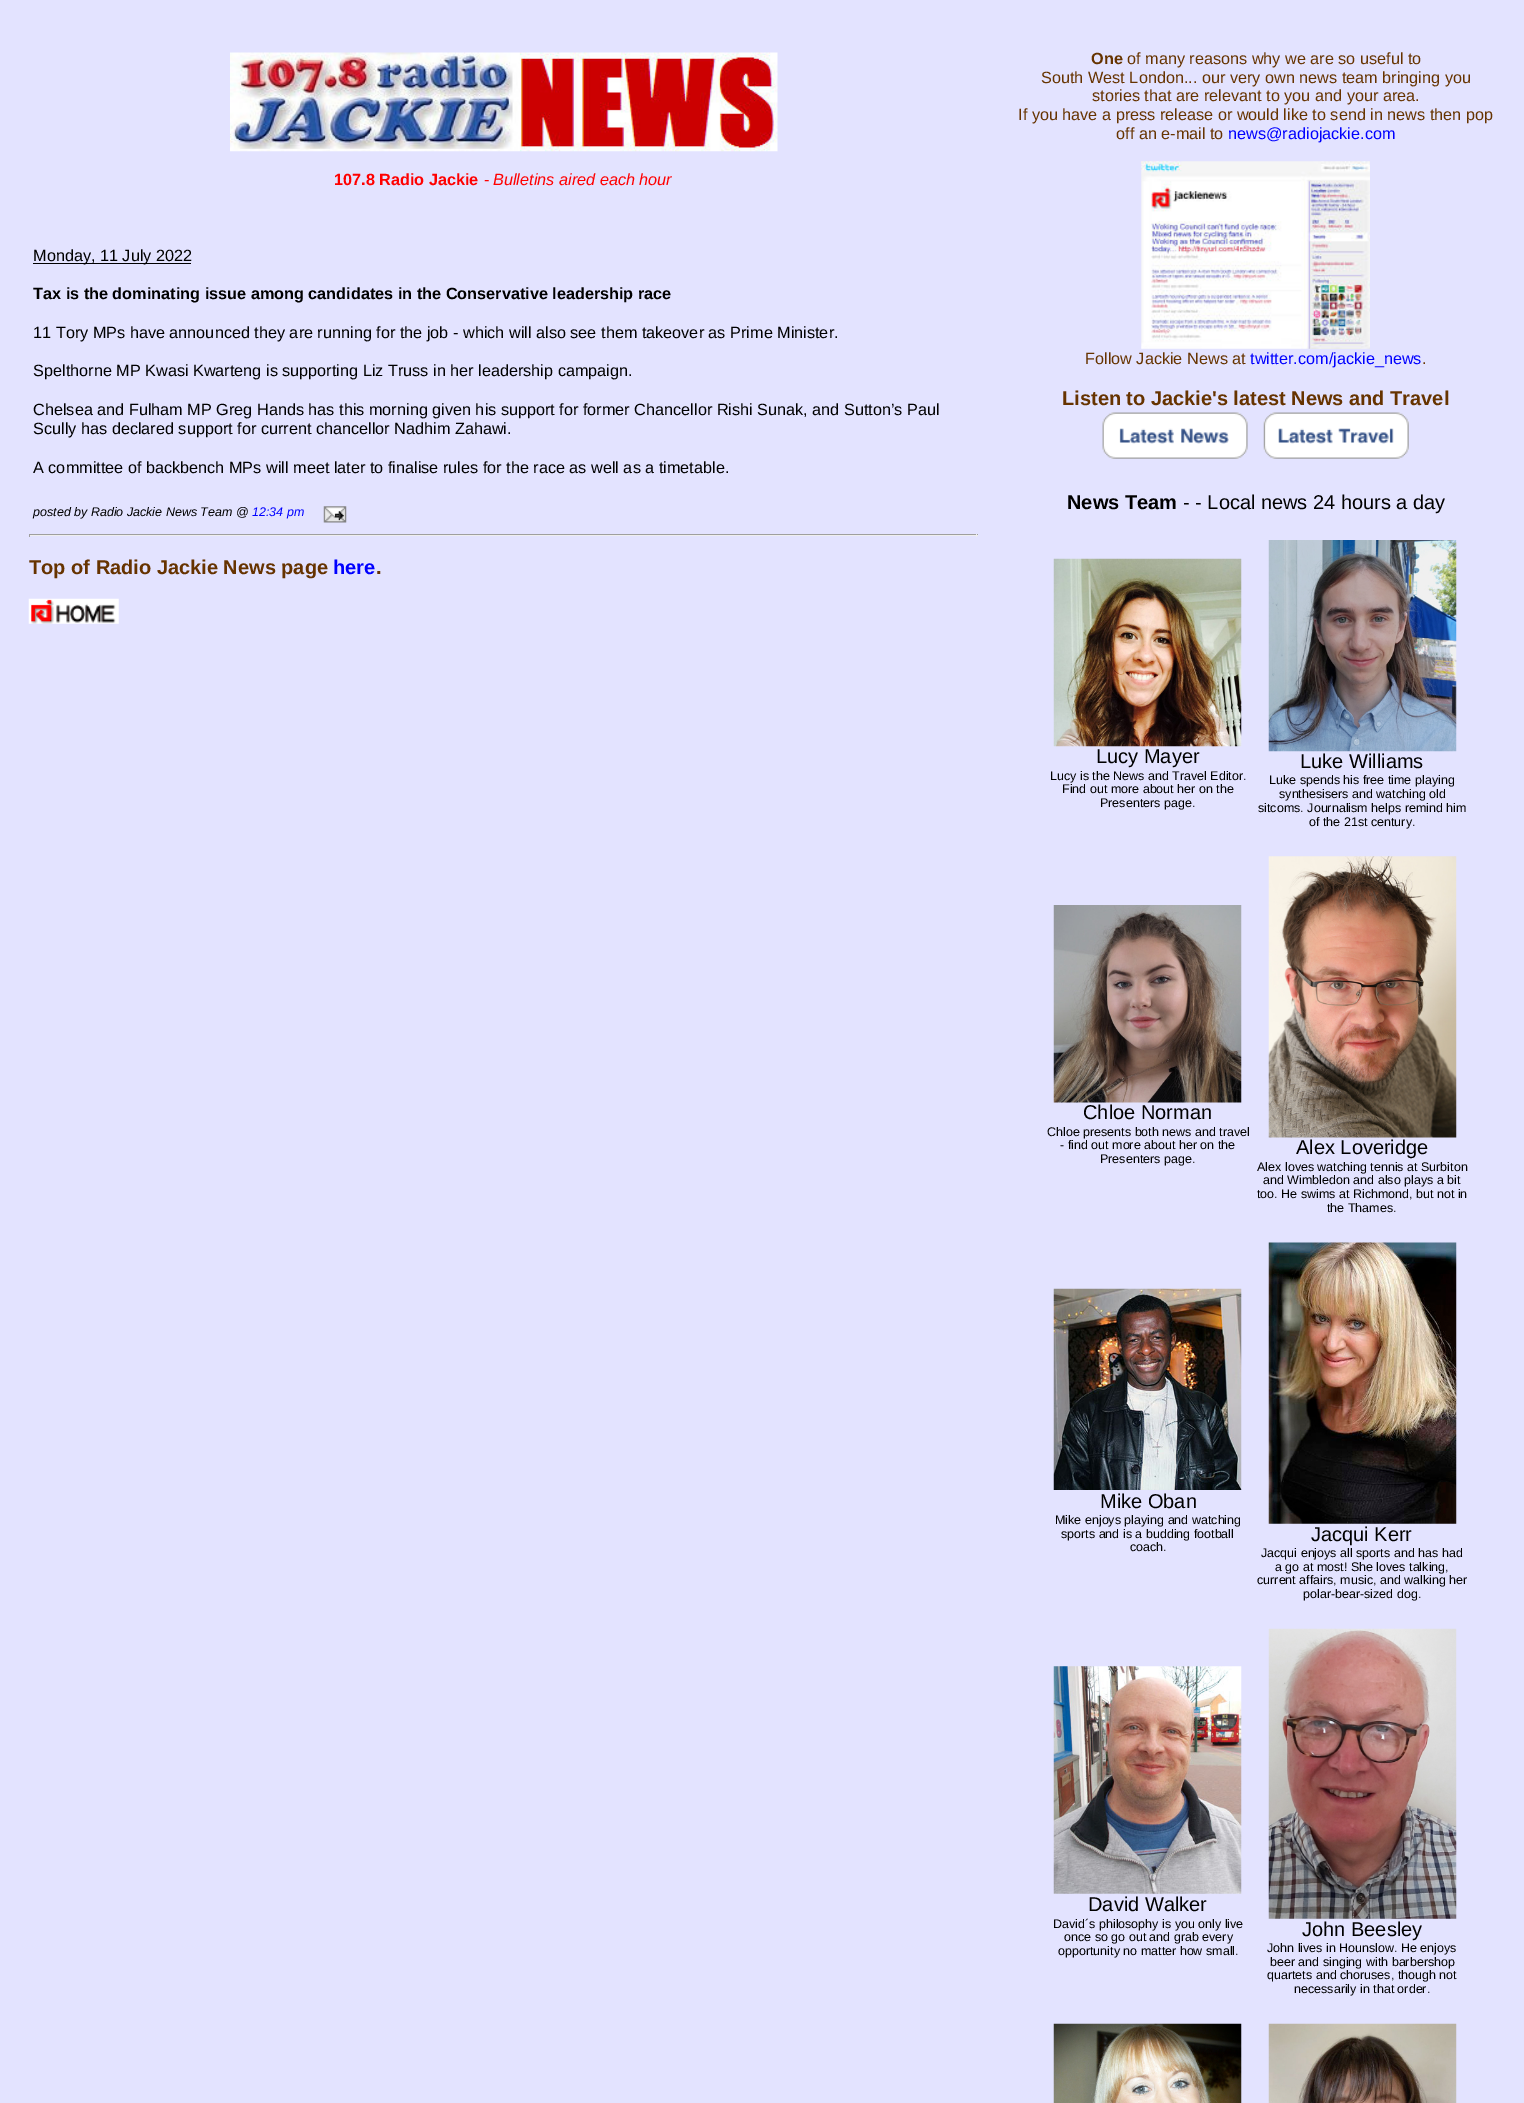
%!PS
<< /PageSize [1524 2103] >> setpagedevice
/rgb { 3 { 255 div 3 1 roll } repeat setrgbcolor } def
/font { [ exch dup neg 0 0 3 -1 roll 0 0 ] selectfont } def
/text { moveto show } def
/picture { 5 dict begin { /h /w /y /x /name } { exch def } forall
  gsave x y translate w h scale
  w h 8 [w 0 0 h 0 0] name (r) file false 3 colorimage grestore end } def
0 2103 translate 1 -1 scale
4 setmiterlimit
227 227 255 rgb
0 0 1524 2103 rectfill
(img_01.rgb) 230 52 548 100 picture
0 0 0 rgb
33 263 158 1 rectfill
(img_02.rgb) 323 506 24 17 picture
159 159 159 rgb
29 534 949 1 rectfill
238 238 238 rgb
976 534 1 3 rectfill
29 535 949 1 rectfill
159 159 159 rgb
29 534 1 3 rectfill
(img_03.rgb) 28 598 91 26 picture
(img_04.rgb) 1141 161 229 188 picture
(img_05.rgb) 1102 412 146 47 picture
(img_06.rgb) 1263 412 146 47 picture
(img_07.rgb) 1053 558 189 189 picture
(img_08.rgb) 1268 540 189 212 picture
(img_09.rgb) 1053 905 189 198 picture
(img_10.rgb) 1268 856 189 282 picture
(img_11.rgb) 1053 1288 189 202 picture
(img_12.rgb) 1268 1242 189 282 picture
(img_13.rgb) 1053 1666 189 228 picture
(img_14.rgb) 1268 1628 189 291 picture
(img_15.rgb) 1053 2023 189 80 picture
(img_16.rgb) 1268 2023 189 80 picture
/LiberationSans-Bold 16.25 font
255 0 0 rgb
(107.8 Radio Jackie) 334 185 text
/LiberationSans-Regular 16.25 font
(-) 484 185 text
/LiberationSans-Italic 16.25 font
(Bulletins aired each hour) 493 185 text
/LiberationSans-Regular 16.25 font
0 0 0 rgb
(Monday, 11 July 2022) 33 261 text
/LiberationSans-Bold 16.25 font
(Tax is the dominating issue among candidates in the Conservative leadership race) 33 299 text
/LiberationSans-Regular 16.25 font
(11 Tory MPs have announced they are running for the job - which will also see them takeover as Prime Minister.) 33 338 text
(Spelthorne MP Kwasi Kwarteng is supporting Liz Truss in her leadership campaign.) 33 376 text
(Chelsea and Fulham MP Greg Hands has this morning given his support for former Chancellor Rishi Sunak, and Sutton’s Paul) 33 415 text
(Scully has declared support for current chancellor Nadhim Zahawi.) 33 434 text
(A committee of backbench MPs will meet later to finalise rules for the race as well as a timetable.) 33 473 text
/LiberationSans-Italic 12.5 font
(posted by Radio Jackie News Team @) 33 516 text
0 0 255 rgb
(12:34 pm) 252 516 text
/LiberationSans-Bold 20 font
102 51 0 rgb
(Top of Radio Jackie News page) 29 574 text
0 0 255 rgb
(here) 333 574 text
102 51 0 rgb
(.) 376 574 text
/LiberationSans-Bold 16.25 font
(One) 1091 64 text
/LiberationSans-Regular 16.25 font
(of many reasons why we are so useful to) 1127 64 text
(South West London... our very own news team bringing you) 1041 83 text
(stories that are relevant to you and your area.) 1092 101 text
(If you have a press release or would like to send in news then pop) 1018 120 text
(off an e-mail to) 1116 139 text
0 0 255 rgb
(news@radiojackie.com) 1228 139 text
102 51 0 rgb
(Follow Jackie News at) 1085 364 text
0 0 255 rgb
(twitter.com/jackie_news) 1250 364 text
102 51 0 rgb
(.) 1422 364 text
/LiberationSans-Bold 20 font
(Listen to Jackie's latest News and Travel) 1062 405 text
0 0 0 rgb
(News Team) 1067 509 text
/LiberationSans-Regular 20 font
(- - Local news 24 hours a day) 1183 509 text
(Lucy Mayer) 1096 763 text
/LiberationSans-Regular 12.5 font
(Lucy is the News and Travel Editor.) 1050 780 text
(Find out more about her on the) 1062 793 text
(Presenters page.) 1100 807 text
/LiberationSans-Regular 20 font
(Luke Williams) 1300 768 text
/LiberationSans-Regular 12.5 font
(Luke spends his free time playing) 1269 784 text
(synthesisers and watching old) 1279 798 text
(sitcoms. Journalism helps remind him) 1258 812 text
(of the 21st century.) 1309 826 text
/LiberationSans-Regular 20 font
(Chloe Norman) 1083 1119 text
/LiberationSans-Regular 12.5 font
(Chloe presents both news and travel) 1047 1136 text
(- find out more about her on the) 1060 1149 text
(Presenters page.) 1100 1163 text
/LiberationSans-Regular 20 font
(Alex Loveridge) 1296 1154 text
/LiberationSans-Regular 12.5 font
(Alex loves watching tennis at Surbiton) 1257 1171 text
(and Wimbledon and also plays a bit) 1263 1184 text
(too. He swims at Richmond, but not in) 1257 1198 text
(the Thames.) 1327 1212 text
/LiberationSans-Regular 20 font
(Mike Oban) 1100 1508 text
/LiberationSans-Regular 12.5 font
(Mike enjoys playing and watching) 1055 1524 text
(sports and is a budding football) 1061 1538 text
(coach.) 1130 1551 text
/LiberationSans-Regular 20 font
(Jacqui Kerr) 1311 1541 text
/LiberationSans-Regular 12.5 font
(Jacqui enjoys all sports and has had) 1261 1557 text
(a go at most! She loves talking,) 1275 1571 text
(current affairs, music, and walking her) 1257 1584 text
(polar-bear-sized dog.) 1303 1598 text
/LiberationSans-Regular 20 font
(David Walker) 1088 1911 text
/LiberationSans-Regular 12.5 font
(David´s philosophy is you only live) 1053 1928 text
(once so go out and grab every) 1064 1941 text
(opportunity no matter how small.) 1058 1955 text
/LiberationSans-Regular 20 font
(John Beesley) 1302 1936 text
/LiberationSans-Regular 12.5 font
(John lives in Hounslow. He enjoys) 1267 1952 text
(beer and singing with barbershop) 1270 1966 text
(quartets and choruses, though not) 1267 1979 text
(necessarily in that order.) 1294 1993 text
showpage
